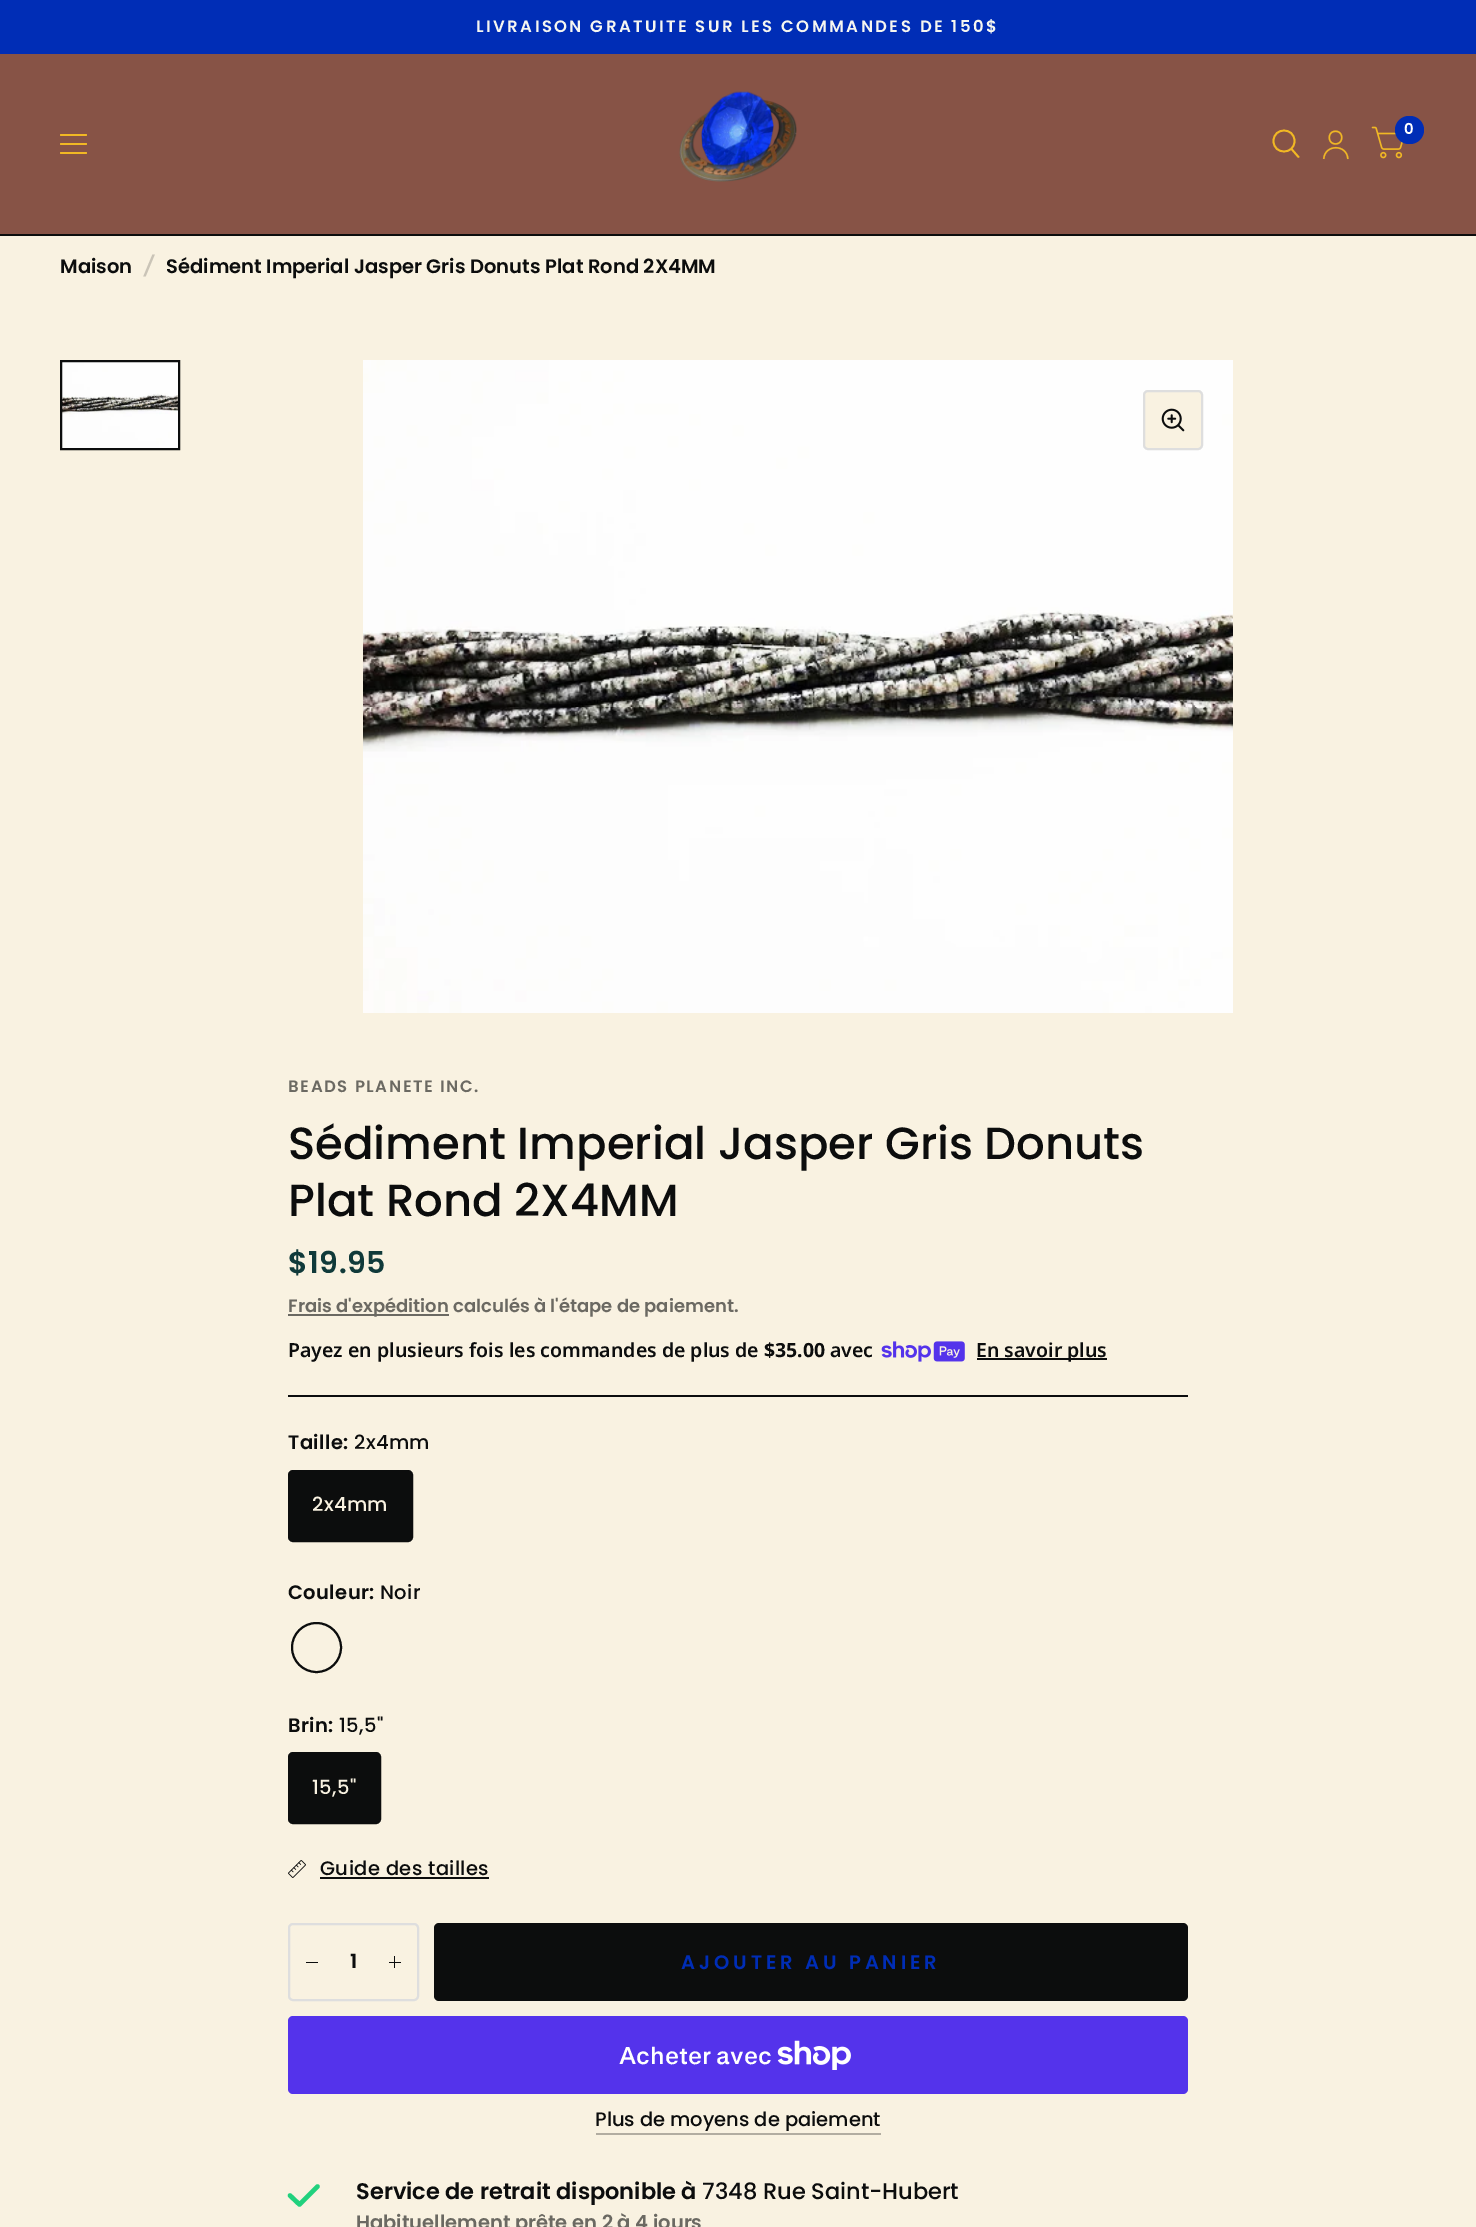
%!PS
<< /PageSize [1476 2227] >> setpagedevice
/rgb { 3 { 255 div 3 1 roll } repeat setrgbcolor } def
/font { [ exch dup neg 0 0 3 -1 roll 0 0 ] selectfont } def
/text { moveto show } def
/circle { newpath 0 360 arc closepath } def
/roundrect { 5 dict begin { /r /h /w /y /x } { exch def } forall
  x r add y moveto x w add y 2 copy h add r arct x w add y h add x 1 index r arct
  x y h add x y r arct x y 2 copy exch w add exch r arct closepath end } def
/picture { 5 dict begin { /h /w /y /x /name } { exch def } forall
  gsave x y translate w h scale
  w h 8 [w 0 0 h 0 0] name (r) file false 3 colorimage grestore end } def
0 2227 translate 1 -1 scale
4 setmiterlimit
249 242 225 rgb
0 0 1476 2227 rectfill
0 45 182 rgb
0 0 1476 54 rectfill
135 83 70 rgb
0 54 1476 180 rectfill
12 13 13 rgb
0 234 1476 2 rectfill
(img_01.rgb) 679 91 118 91 picture
241 184 36 rgb
1.8 setlinewidth
1 setlinecap
1 setlinejoin
1291.5 149 moveto 7 8 rlineto 1294.5 141 moveto 0 14 -21 14 -21 0 rcurveto 0 -14 21 -14 21 0 rcurveto closepath stroke
(img_02.rgb) 1322 130 27 30 picture
(img_03.rgb) 1371 126 32 33 picture
0 45 182 rgb
1395 116 29 28 14 roundrect fill
241 184 36 rgb
60 134 27 2 1 roundrect fill
60 143 27 2 1 roundrect fill
60 152 27 2 1 roundrect fill
(img_04.rgb) 62 362 116 86 picture
12 13 13 rgb
2 setlinewidth
0 setlinecap
0 setlinejoin
61 361 118 88 rectstroke
(img_05.rgb) 363 360 870 653 picture
249 242 225 rgb
1144 391 58 58 4 roundrect gsave fill grestore
222 222 222 rgb
stroke
(img_06.rgb) 1161 408 24 24 picture
12 13 13 rgb
288 1395 900 2 rectfill
107 105 98 rgb
288 1314 161 2 rectfill
(img_07.rgb) 881 1341 84 21 picture
12 13 13 rgb
977 1358 130 2 rectfill
289 1471 123 70 4 roundrect gsave fill grestore
stroke
316.5 1647.5 24.5 circle stroke
289 1753 91 70 4 roundrect gsave fill grestore
stroke
(img_08.rgb) 288 1860 18 18 picture
320 1877 169 2 rectfill
222 222 222 rgb
289 1924 129 76 4 roundrect stroke
12 13 13 rgb
306 1962 12 1 rectfill
394 1956 1 12 rectfill
389 1962 12 1 rectfill
434 1923 754 78 5 roundrect fill
84 51 235 rgb
288 2016 900 78 5 roundrect fill
(img_09.rgb) 777 2040 74 30 picture
178 173 161 rgb
596 2133 285 2 rectfill
33 209 125 rgb
4.5 setlinewidth
1 setlinecap
1 setlinejoin
317.5 2186.5 moveto -18 18 rlineto -9.5 -9 rlineto stroke
/Poppins-SemiBold 16.5 font
246 246 240 rgb
476 32 moveto 2.45 0 (LIVRAISON GRATUITE SUR LES COMMANDES DE 150$) ashow
/Poppins-SemiBold 15 font
255 255 255 rgb
(0) 1404 134 text
/Poppins-SemiBold 19.5 font
12 13 13 rgb
(Maison) 60 273 text
/Poppins-SemiBoldItalic 19.5 font
202 196 183 rgb
(/) 144 273 text
/Poppins-SemiBold 19.5 font
12 13 13 rgb
(Sédiment Imperial Jasper Gris Donuts Plat Rond 2X4MM) 166 273 text
/Poppins-SemiBold 16.5 font
107 105 98 rgb
288 1092 moveto 1.6 0 (BEADS PLANETE INC.) ashow
/Poppins-Medium 45 font
12 13 13 rgb
(Sédiment Imperial Jasper Gris Donuts) 288 1159 text
(Plat Rond 2X4MM) 288 1216 text
/Poppins-SemiBold 30 font
16 58 58 rgb
288 1273 moveto 0.5 0 ($19.95) ashow
/Poppins-SemiBold 18 font
107 105 98 rgb
(Frais d'expédition calculés à l'étape de paiement.) 288 1312 text
/NotoSans-SemiBold 19.5 font
12 13 13 rgb
(Payez en plusieurs fois les commandes de plus de) 288 1357 text
/NotoSans-Bold 19.5 font
($35.00) 764 1357 text
/NotoSans-SemiBold 19.5 font
(avec) 830 1357 text
(En savoir plus) 976 1357 text
/Poppins-SemiBold 19.5 font
288 1449 moveto 0.4 0 (Taille:) ashow
/Poppins-Medium 19.5 font
354 1449 moveto 0.4 0 (2x4mm) ashow
249 242 225 rgb
312 1511 moveto 0.4 0 (2x4mm) ashow
/Poppins-SemiBold 19.5 font
12 13 13 rgb
288 1599 moveto 0.4 0 (Couleur:) ashow
/Poppins-Medium 19.5 font
380 1599 moveto 0.4 0 (Noir) ashow
/Poppins-SemiBold 19.5 font
288 1732 moveto 0.4 0 (Brin:) ashow
/Poppins-Medium 19.5 font
339 1732 moveto 0.4 0 (15,5") ashow
249 242 225 rgb
312 1794 moveto 0.4 0 (15,5") ashow
12 13 13 rgb
320 1875 moveto 0.4 0 (Guide des tailles) ashow
/Poppins-SemiBold 19.5 font
(1) 350 1968 text
0 45 182 rgb
681 1969 moveto 3.9 0 (AJOUTER AU PANIER) ashow
/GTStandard-SemiBold 24 font
255 255 255 rgb
(Acheter avec) 619 2064 text
/Poppins-Medium 19.5 font
12 13 13 rgb
(Plus de moyens de paiement) 595 2126 text
/Poppins-SemiBold 22.5 font
(Service de retrait disponible à) 356 2199 text
/Poppins-Medium 22.5 font
(7348 Rue Saint-Hubert) 702 2199 text
/Poppins-SemiBold 19.5 font
107 105 98 rgb
(Habituellement prête en 2 à 4 jours) 356 2229 text
showpage
